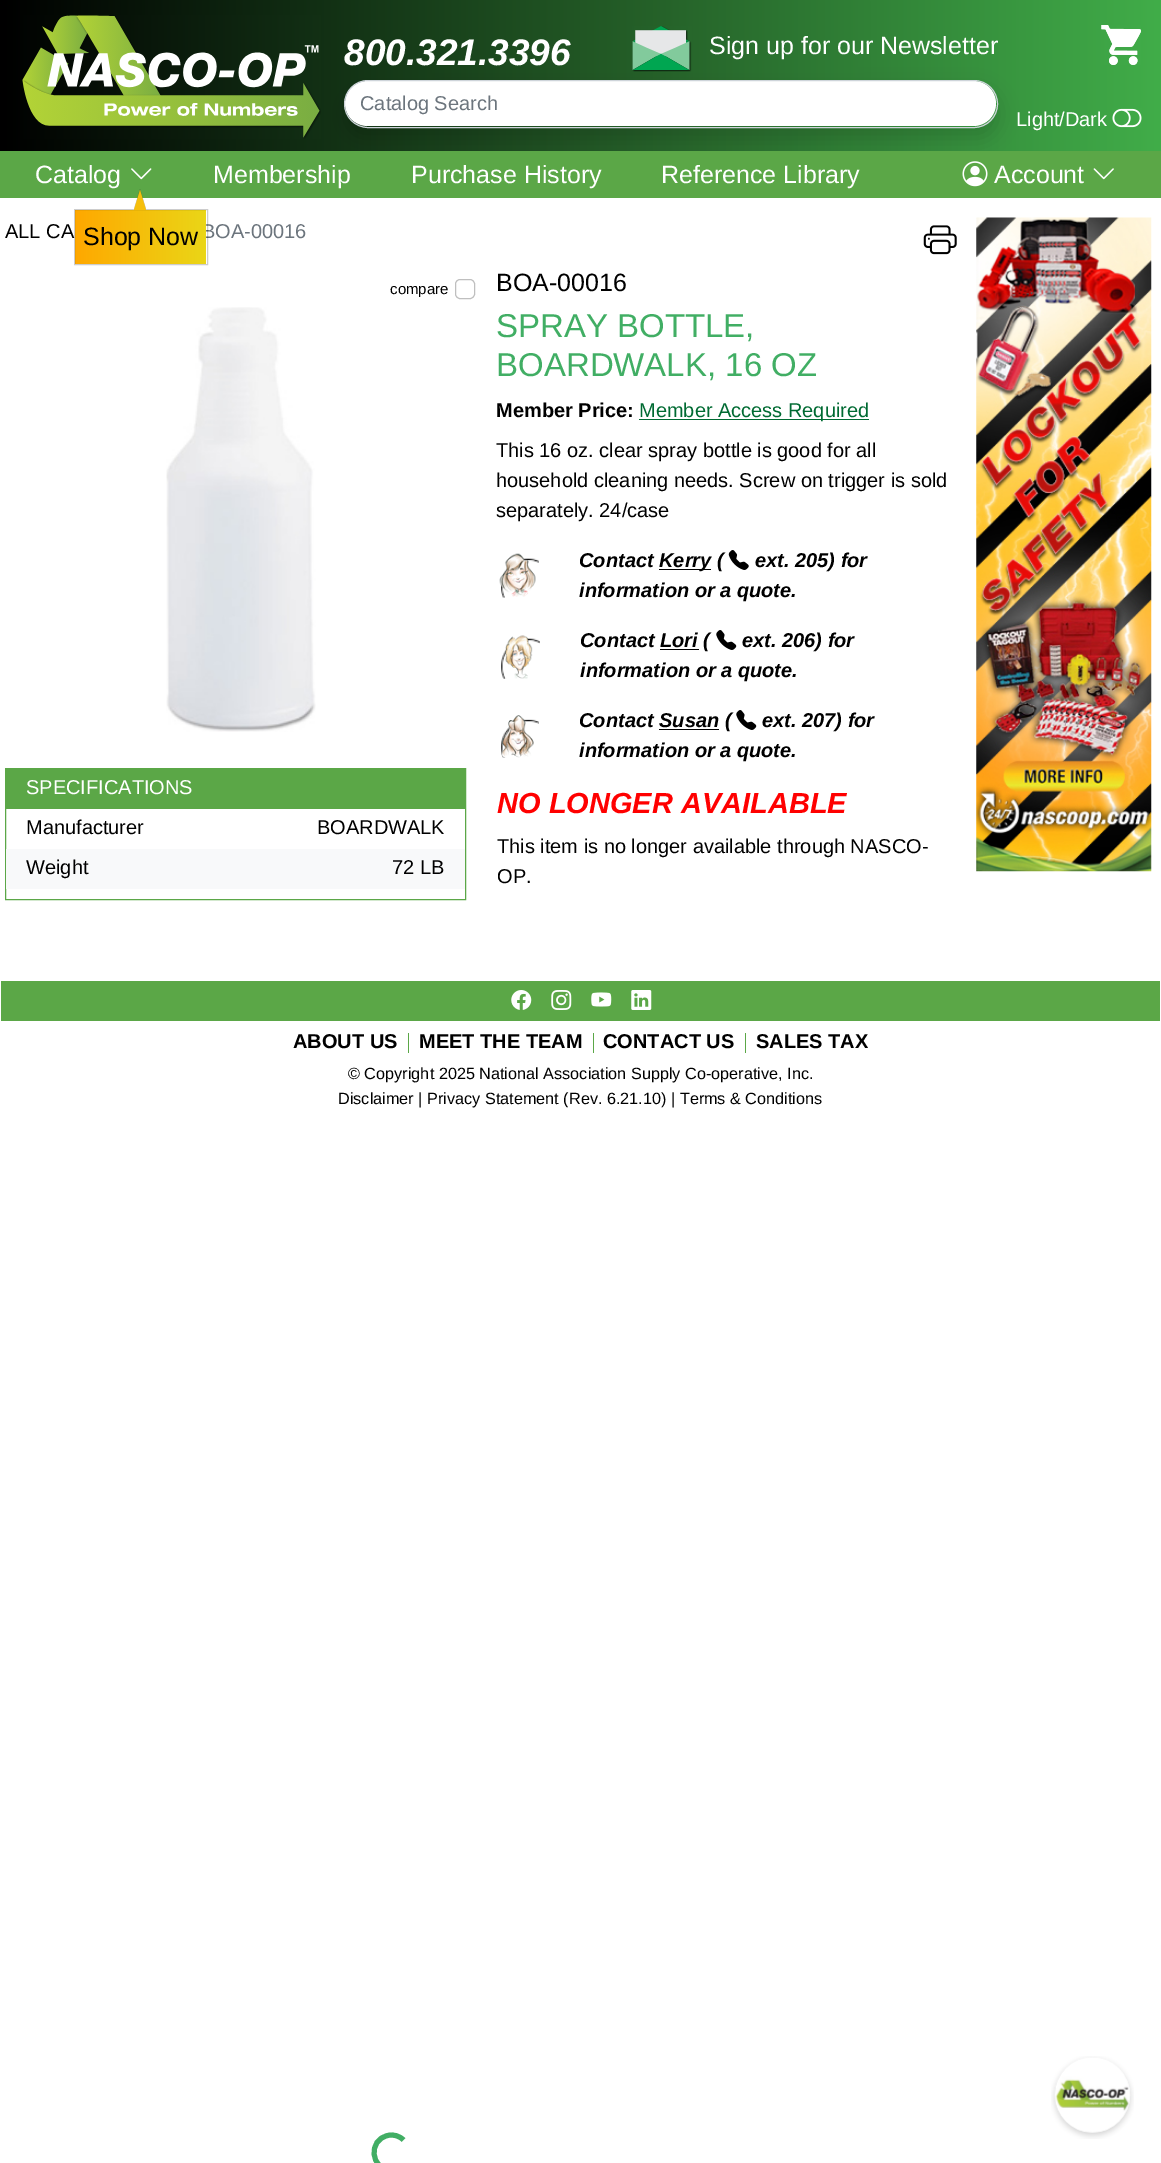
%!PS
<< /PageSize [1161 2163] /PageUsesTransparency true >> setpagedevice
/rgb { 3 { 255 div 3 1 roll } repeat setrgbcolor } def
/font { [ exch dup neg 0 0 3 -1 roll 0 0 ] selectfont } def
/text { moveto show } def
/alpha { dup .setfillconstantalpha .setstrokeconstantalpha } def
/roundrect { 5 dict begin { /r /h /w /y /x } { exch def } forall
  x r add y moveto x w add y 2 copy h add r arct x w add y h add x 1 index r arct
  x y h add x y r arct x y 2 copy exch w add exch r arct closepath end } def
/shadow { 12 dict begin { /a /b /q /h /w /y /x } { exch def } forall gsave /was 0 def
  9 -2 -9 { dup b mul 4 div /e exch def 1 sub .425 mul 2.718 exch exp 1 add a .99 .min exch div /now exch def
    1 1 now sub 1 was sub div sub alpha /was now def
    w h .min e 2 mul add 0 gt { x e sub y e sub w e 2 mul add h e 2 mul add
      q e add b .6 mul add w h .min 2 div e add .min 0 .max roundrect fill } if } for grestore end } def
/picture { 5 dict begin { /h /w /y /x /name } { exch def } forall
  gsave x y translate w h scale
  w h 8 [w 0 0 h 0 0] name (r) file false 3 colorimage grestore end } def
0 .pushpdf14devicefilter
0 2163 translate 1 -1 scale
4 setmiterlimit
255 255 255 rgb
0 0 1161 2163 rectfill
gsave 0 0 moveto 1161 0 rlineto 0 151 rlineto -1161 0 rlineto closepath clip newpath
<< /ShadingType 2 /ColorSpace /DeviceRGB /Coords [0 76 1161 76] /Extend [true true] /Function << /FunctionType 2 /Domain [0 1] /C0 [0 0 0] /C1 [0.255 0.678 0.286] /N 1 >> >> shfill grestore
(img_01.rgb) 22 15 299 124 picture
gsave
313 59 moveto 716 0 rlineto 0 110 rlineto -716 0 rlineto closepath 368 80 moveto 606 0 rlineto 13.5 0 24 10.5 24 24 rcurveto 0 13.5 -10.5 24 -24 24 rcurveto -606 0 rlineto -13.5 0 -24 -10.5 -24 -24 rcurveto 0 -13.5 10.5 -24 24 -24 rcurveto closepath eoclip newpath
0 0 0 rgb
344 90 654 48 24 10 0.15 shadow
grestore
(img_02.rgb) 632 26 60 46 picture
345 81 651 45 22.5 roundrect fill
206 212 218 rgb
344.5 80.5 653 47 23.5 roundrect stroke
(img_03.rgb) 1101 25 40 40 picture
(img_04.rgb) 1112 108 30 20 picture
91 167 71 rgb
0 151 1161 47 rectfill
(img_05.rgb) 131 168 21 12 picture
(img_06.rgb) 962 161 26 26 picture
(img_07.rgb) 1093 168 21 12 picture
(img_08.rgb) 923 225 34 30 picture
191 191 191 rgb
455.5 279.5 19 19 4.5 roundrect stroke
(img_09.rgb) 166 307 150 425 picture
91 167 71 rgb
5.5 768.5 460 131 rectstroke
6 769 459 40 rectfill
248 249 250 rgb
6 849 459 40 rectfill
0 106 50 rgb
639 419 230 1 rectfill
(img_10.rgb) 501 558 38 40 picture
(img_11.rgb) 499 553 37 44 picture
0 0 0 rgb
659 569 52 1 rectfill
(img_12.rgb) 728 550 21 20 picture
(img_13.rgb) 501 638 39 41 picture
(img_14.rgb) 505 635 28 44 picture
(img_15.rgb) 716 630 21 20 picture
660 649 39 1 rectfill
(img_16.rgb) 501 719 38 39 picture
(img_17.rgb) 501 715 33 43 picture
(img_15.rgb) 736 710 21 20 picture
659 729 60 1 rectfill
(img_18.rgb) 976 217 176 655 picture
91 167 71 rgb
1 981 1159 40 rectfill
(img_19.rgb) 511 990 21 20 picture
(img_20.rgb) 551 990 21 20 picture
(img_21.rgb) 591 992 21 15 picture
(img_22.rgb) 631 990 21 20 picture
408 1033 1 20 rectfill
593 1033 1 20 rectfill
745 1033 1 20 rectfill
65 174 100 rgb
5 setlinewidth
403.5 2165 moveto -3 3 -7.5 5 -12.5 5 rcurveto -20.5 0 -23.5 -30.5 -3 -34.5 rcurveto 5.5 -1.5 11.5 0.5 15.5 4.5 rcurveto stroke
0.25 alpha
0 0 0 rgb
146 209 moveto -12 0 rlineto 6 -20 rlineto closepath fill
1 alpha
(img_23.rgb) 1051 2056 83 83 picture
/LiberationSans-BoldItalic 37 font
255 255 255 rgb
(800.321.3396) 344 65 text
/LiberationSans-Regular 25 font
(Sign up for our Newsletter) 709 54 text
/LiberationSans-Regular 20 font
108 117 125 rgb
(Catalog Search) 360 110 text
255 255 255 rgb
(Light/Dark) 1016 126 text
/LiberationSans-Regular 25 font
(Catalog) 35 183 text
(Membership) 213 183 text
(Purchase History) 411 183 text
(Reference Library) 661 183 text
(Account) 994 183 text
/LiberationSans-Regular 20 font
0 0 0 rgb
(ALL CA) 5 238 text
108 117 125 rgb
(BOA-00016) 202 238 text
/LiberationSans-Regular 15 font
0 0 0 rgb
(compare) 390 294 text
/LiberationSans-Regular 20 font
255 255 255 rgb
(SPECIFICATIONS) 26 794 text
0 0 0 rgb
(Manufacturer) 26 834 text
(BOARDWALK) 317 834 text
(Weight) 26 874 text
(72 LB) 392 874 text
/LiberationSans-Regular 25 font
(BOA-00016) 496 291 text
/LiberationSans-Regular 33 font
65 174 100 rgb
(SPRAY BOTTLE,) 496 337 text
(BOARDWALK, 16 OZ) 496 376 text
/LiberationSans-Bold 20 font
0 0 0 rgb
(Member Price:) 496 417 text
/LiberationSans-Regular 20 font
0 106 50 rgb
(Member Access Required) 639 417 text
0 0 0 rgb
(This 16 oz. clear spray bottle is good for all) 496 457 text
(household cleaning needs. Screw on trigger is sold) 496 487 text
(separately. 24/case) 496 517 text
/LiberationSans-BoldItalic 20 font
(Contact) 579 567 text
(Kerry \() 659 567 text
(ext. 205\) for) 755 567 text
(information or a quote.) 579 597 text
(Contact Lori \() 580 647 text
(ext. 206\) for) 742 647 text
(information or a quote.) 580 677 text
(Contact Susan \() 579 727 text
(ext. 207\) for) 762 727 text
(information or a quote.) 579 757 text
/LiberationSans-BoldItalic 29 font
255 0 0 rgb
(NO LONGER AVAILABLE) 497 813 text
/LiberationSans-Regular 20 font
0 0 0 rgb
(This item is no longer available through NASCO-) 497 853 text
(OP.) 497 883 text
/LiberationSans-Bold 20 font
(ABOUT US) 293 1048 text
(MEET THE TEAM) 419 1048 text
(CONTACT US) 603 1048 text
(SALES TAX) 756 1048 text
/LiberationSans-Regular 16.25 font
(© Copyright 2025 National Association Supply Co-operative, Inc.) 348 1079 text
(Disclaimer | Privacy Statement \(Rev. 6.21.10\) | Terms & Conditions) 338 1104 text
gsave 75 210 moveto 131 0 rlineto 0 54 rlineto -131 0 rlineto closepath clip newpath
<< /ShadingType 2 /ColorSpace /DeviceRGB /Coords [75 237 206 237] /Extend [true true] /Function << /FunctionType 2 /Domain [0 1] /C0 [1 0.659 0] /C1 [0.918 0.839 0.09] /N 1 >> >> shfill grestore
0.2 alpha
1 setlinewidth
74.5 209.5 133 55 rectstroke
1 alpha
246 191 12 rgb
146 210 moveto -12 0 rlineto 6 -20 rlineto closepath fill
/LiberationSans-Regular 25 font
0 0 0 rgb
(Shop Now) 83 245 text
.poppdf14devicefilter showpage
